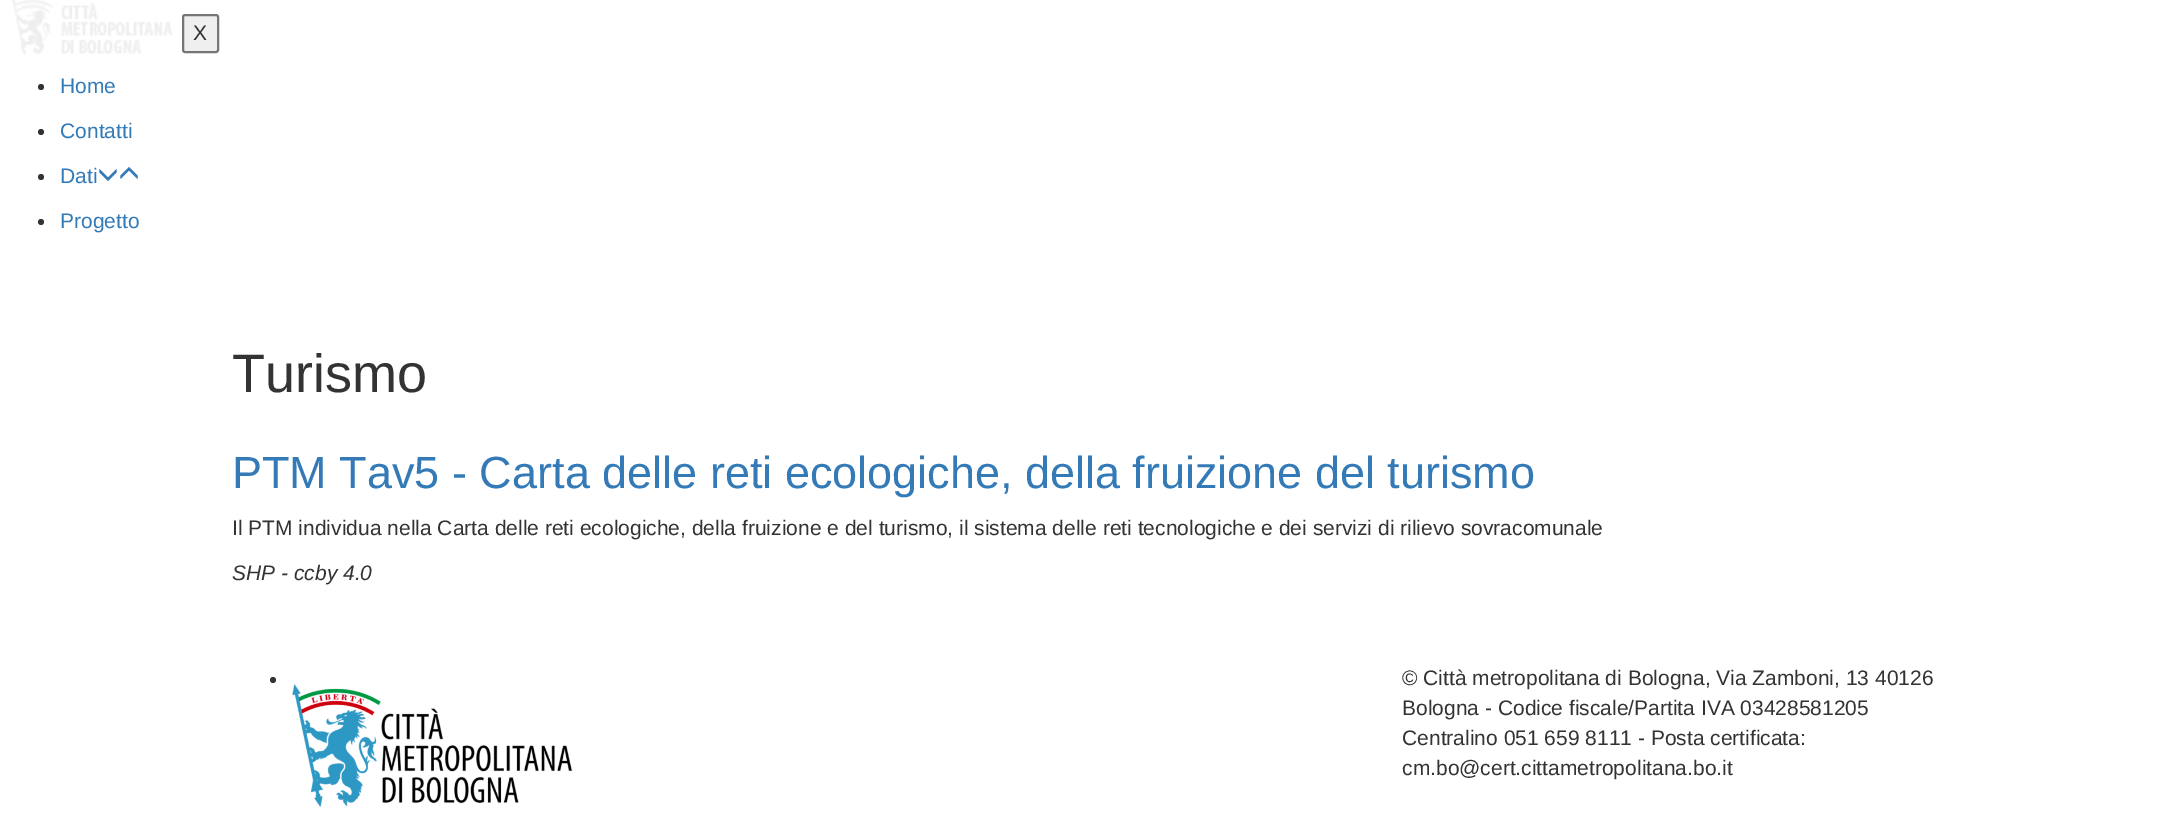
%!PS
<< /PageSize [2170 824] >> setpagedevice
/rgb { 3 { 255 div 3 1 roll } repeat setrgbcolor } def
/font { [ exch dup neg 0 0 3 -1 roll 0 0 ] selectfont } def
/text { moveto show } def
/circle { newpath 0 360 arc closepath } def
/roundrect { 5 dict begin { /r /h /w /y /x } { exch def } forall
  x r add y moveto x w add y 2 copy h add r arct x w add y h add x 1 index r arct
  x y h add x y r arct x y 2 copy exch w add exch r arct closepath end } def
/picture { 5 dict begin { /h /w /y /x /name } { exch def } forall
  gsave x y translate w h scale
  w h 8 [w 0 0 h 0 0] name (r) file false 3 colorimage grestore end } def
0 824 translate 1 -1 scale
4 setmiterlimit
255 255 255 rgb
0 0 2170 824 rectfill
(img_01.rgb) 12 0 161 55 picture
239 239 239 rgb
183 15 35 37 2 roundrect gsave fill grestore
118 118 118 rgb
2 setlinewidth
stroke
51 51 51 rgb
41 87 3 circle fill
41 132 3 circle fill
41 177 3 circle fill
(img_02.rgb) 99 169 18 12 picture
(img_03.rgb) 120 167 18 12 picture
41 222 3 circle fill
273 680 3 circle fill
(img_04.rgb) 292 684 281 123 picture
/LiberationSans-Regular 21 font
(X) 193 40 text
51 122 183 rgb
(Home) 60 93 text
(Contatti) 60 138 text
(Dati) 60 183 text
(Progetto) 60 228 text
/LiberationSans-Regular 54 font
51 51 51 rgb
(Turismo) 232 392 text
/LiberationSans-Regular 45 font
51 122 183 rgb
(PTM Tav5 - Carta delle reti ecologiche, della fruizione del turismo) 232 488 text
/LiberationSans-Regular 21 font
51 51 51 rgb
(Il PTM individua nella Carta delle reti ecologiche, della fruizione e del turismo, il sistema delle reti tecnologiche e dei servizi di rilievo sovracomunale) 232 535 text
/LiberationSans-Italic 21 font
(SHP - ccby 4.0) 232 580 text
/LiberationSans-Regular 21 font
(© Città metropolitana di Bologna, Via Zamboni, 13 40126) 1402 685 text
(Bologna - Codice fiscale/Partita IVA 03428581205) 1402 715 text
(Centralino 051 659 8111 - Posta certificata:) 1402 745 text
(cm.bo@cert.cittametropolitana.bo.it) 1402 775 text
showpage
